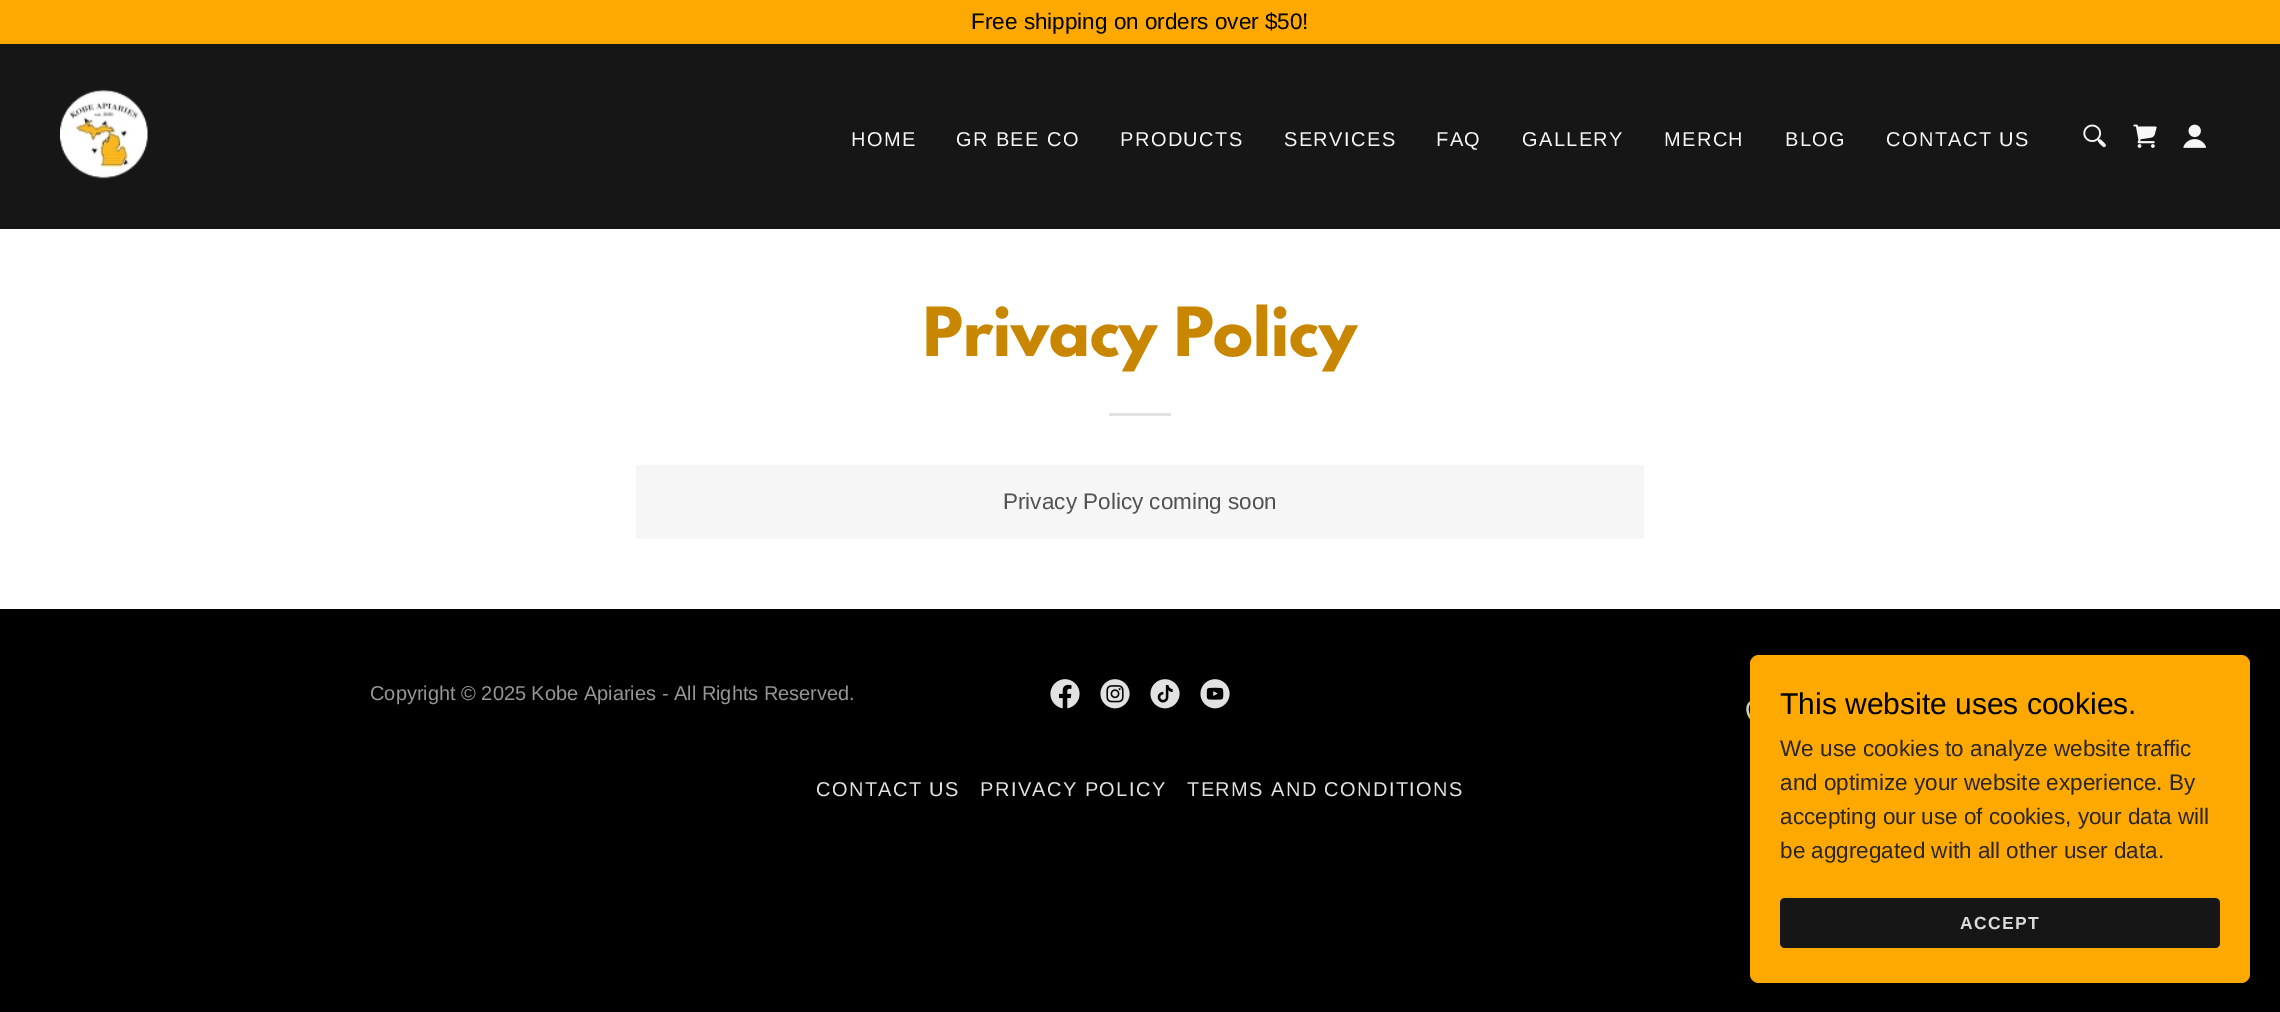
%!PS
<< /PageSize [2280 1012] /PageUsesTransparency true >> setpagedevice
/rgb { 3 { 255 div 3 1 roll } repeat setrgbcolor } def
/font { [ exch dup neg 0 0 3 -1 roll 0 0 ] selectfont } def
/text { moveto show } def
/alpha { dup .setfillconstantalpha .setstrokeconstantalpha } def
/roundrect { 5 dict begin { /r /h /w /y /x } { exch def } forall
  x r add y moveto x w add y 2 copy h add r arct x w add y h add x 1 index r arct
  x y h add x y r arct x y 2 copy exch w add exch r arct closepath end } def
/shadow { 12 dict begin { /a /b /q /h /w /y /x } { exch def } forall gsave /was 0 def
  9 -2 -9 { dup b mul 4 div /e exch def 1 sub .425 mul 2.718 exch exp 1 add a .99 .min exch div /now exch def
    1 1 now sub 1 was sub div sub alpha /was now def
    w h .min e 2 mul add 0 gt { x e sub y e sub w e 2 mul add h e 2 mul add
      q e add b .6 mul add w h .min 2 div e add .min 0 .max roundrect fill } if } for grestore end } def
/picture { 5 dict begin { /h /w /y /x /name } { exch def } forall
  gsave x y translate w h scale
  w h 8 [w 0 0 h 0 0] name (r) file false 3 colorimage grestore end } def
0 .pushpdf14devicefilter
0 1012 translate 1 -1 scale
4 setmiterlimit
0 0 0 rgb
0 0 2280 1012 rectfill
22 22 22 rgb
0 44 2280 185 rectfill
254 169 1 rgb
0 0 2280 44 rectfill
(img_01.rgb) 60 89 88 90 picture
(img_02.rgb) 2083 124 23 24 picture
(img_03.rgb) 2133 124 24 24 picture
(img_04.rgb) 2183 124 24 24 picture
255 255 255 rgb
0 229 2280 380 rectfill
226 226 226 rgb
1109 413 62 3 rectfill
246 246 246 rgb
636 465 1008 74 rectfill
(img_05.rgb) 1050 679 30 30 picture
(img_06.rgb) 1100 679 30 30 picture
(img_07.rgb) 1150 679 30 30 picture
(img_08.rgb) 1200 679 30 30 picture
(img_09.rgb) 1746 701 4 19 picture
0 0 0 rgb
1750 658 500 327 9 4 0.3 shadow
254 169 1 rgb
1750 655 500 328 9 roundrect fill
22 22 22 rgb
1780 898 440 50 5 roundrect fill
/LiberationSans-Regular 22.5 font
0 0 0 rgb
(Free shipping on orders over $50!) 971 29 text
/LiberationSans-Regular 20 font
247 247 247 rgb
851 146 moveto 1.4 0 (HOME) ashow
956 146 moveto 1.4 0 (GR BEE CO) ashow
1120 146 moveto 1.4 0 (PRODUCTS) ashow
1284 146 moveto 1.4 0 (SERVICES) ashow
1436 146 moveto 1.4 0 (FAQ) ashow
1522 146 moveto 1.4 0 (GALLERY) ashow
1664 146 moveto 1.4 0 (MERCH) ashow
1785 146 moveto 1.4 0 (BLOG) ashow
1886 146 moveto 1.4 0 (CONTACT US) ashow
/LeagueSpartan-Bold 60 font
201 134 0 rgb
(Privacy Policy) 923 356 text
/LiberationSans-Regular 22.5 font
82 82 82 rgb
(Privacy Policy coming soon) 1003 509 text
/LiberationSans-Regular 20 font
150 150 150 rgb
(Copyright © 2025 Kobe Apiaries - All Rights Reserved.) 370 700 text
226 226 226 rgb
816 796 moveto 1.4 0 (CONTACT US) ashow
980 796 moveto 1.4 0 (PRIVACY POLICY) ashow
1187 796 moveto 1.4 0 (TERMS AND CONDITIONS) ashow
/LiberationSans-Regular 30 font
0 0 0 rgb
(This website uses cookies.) 1780 714 text
/LiberationSans-Regular 22.5 font
44 38 34 rgb
(We use cookies to analyze website traffic) 1780 756 text
(and optimize your website experience. By) 1780 790 text
(accepting our use of cookies, your data will) 1780 824 text
(be aggregated with all other user data.) 1780 858 text
/LiberationSans-Bold 17.5 font
219 219 219 rgb
1960 929 moveto 1.25 0 (ACCEPT) ashow
.poppdf14devicefilter showpage
